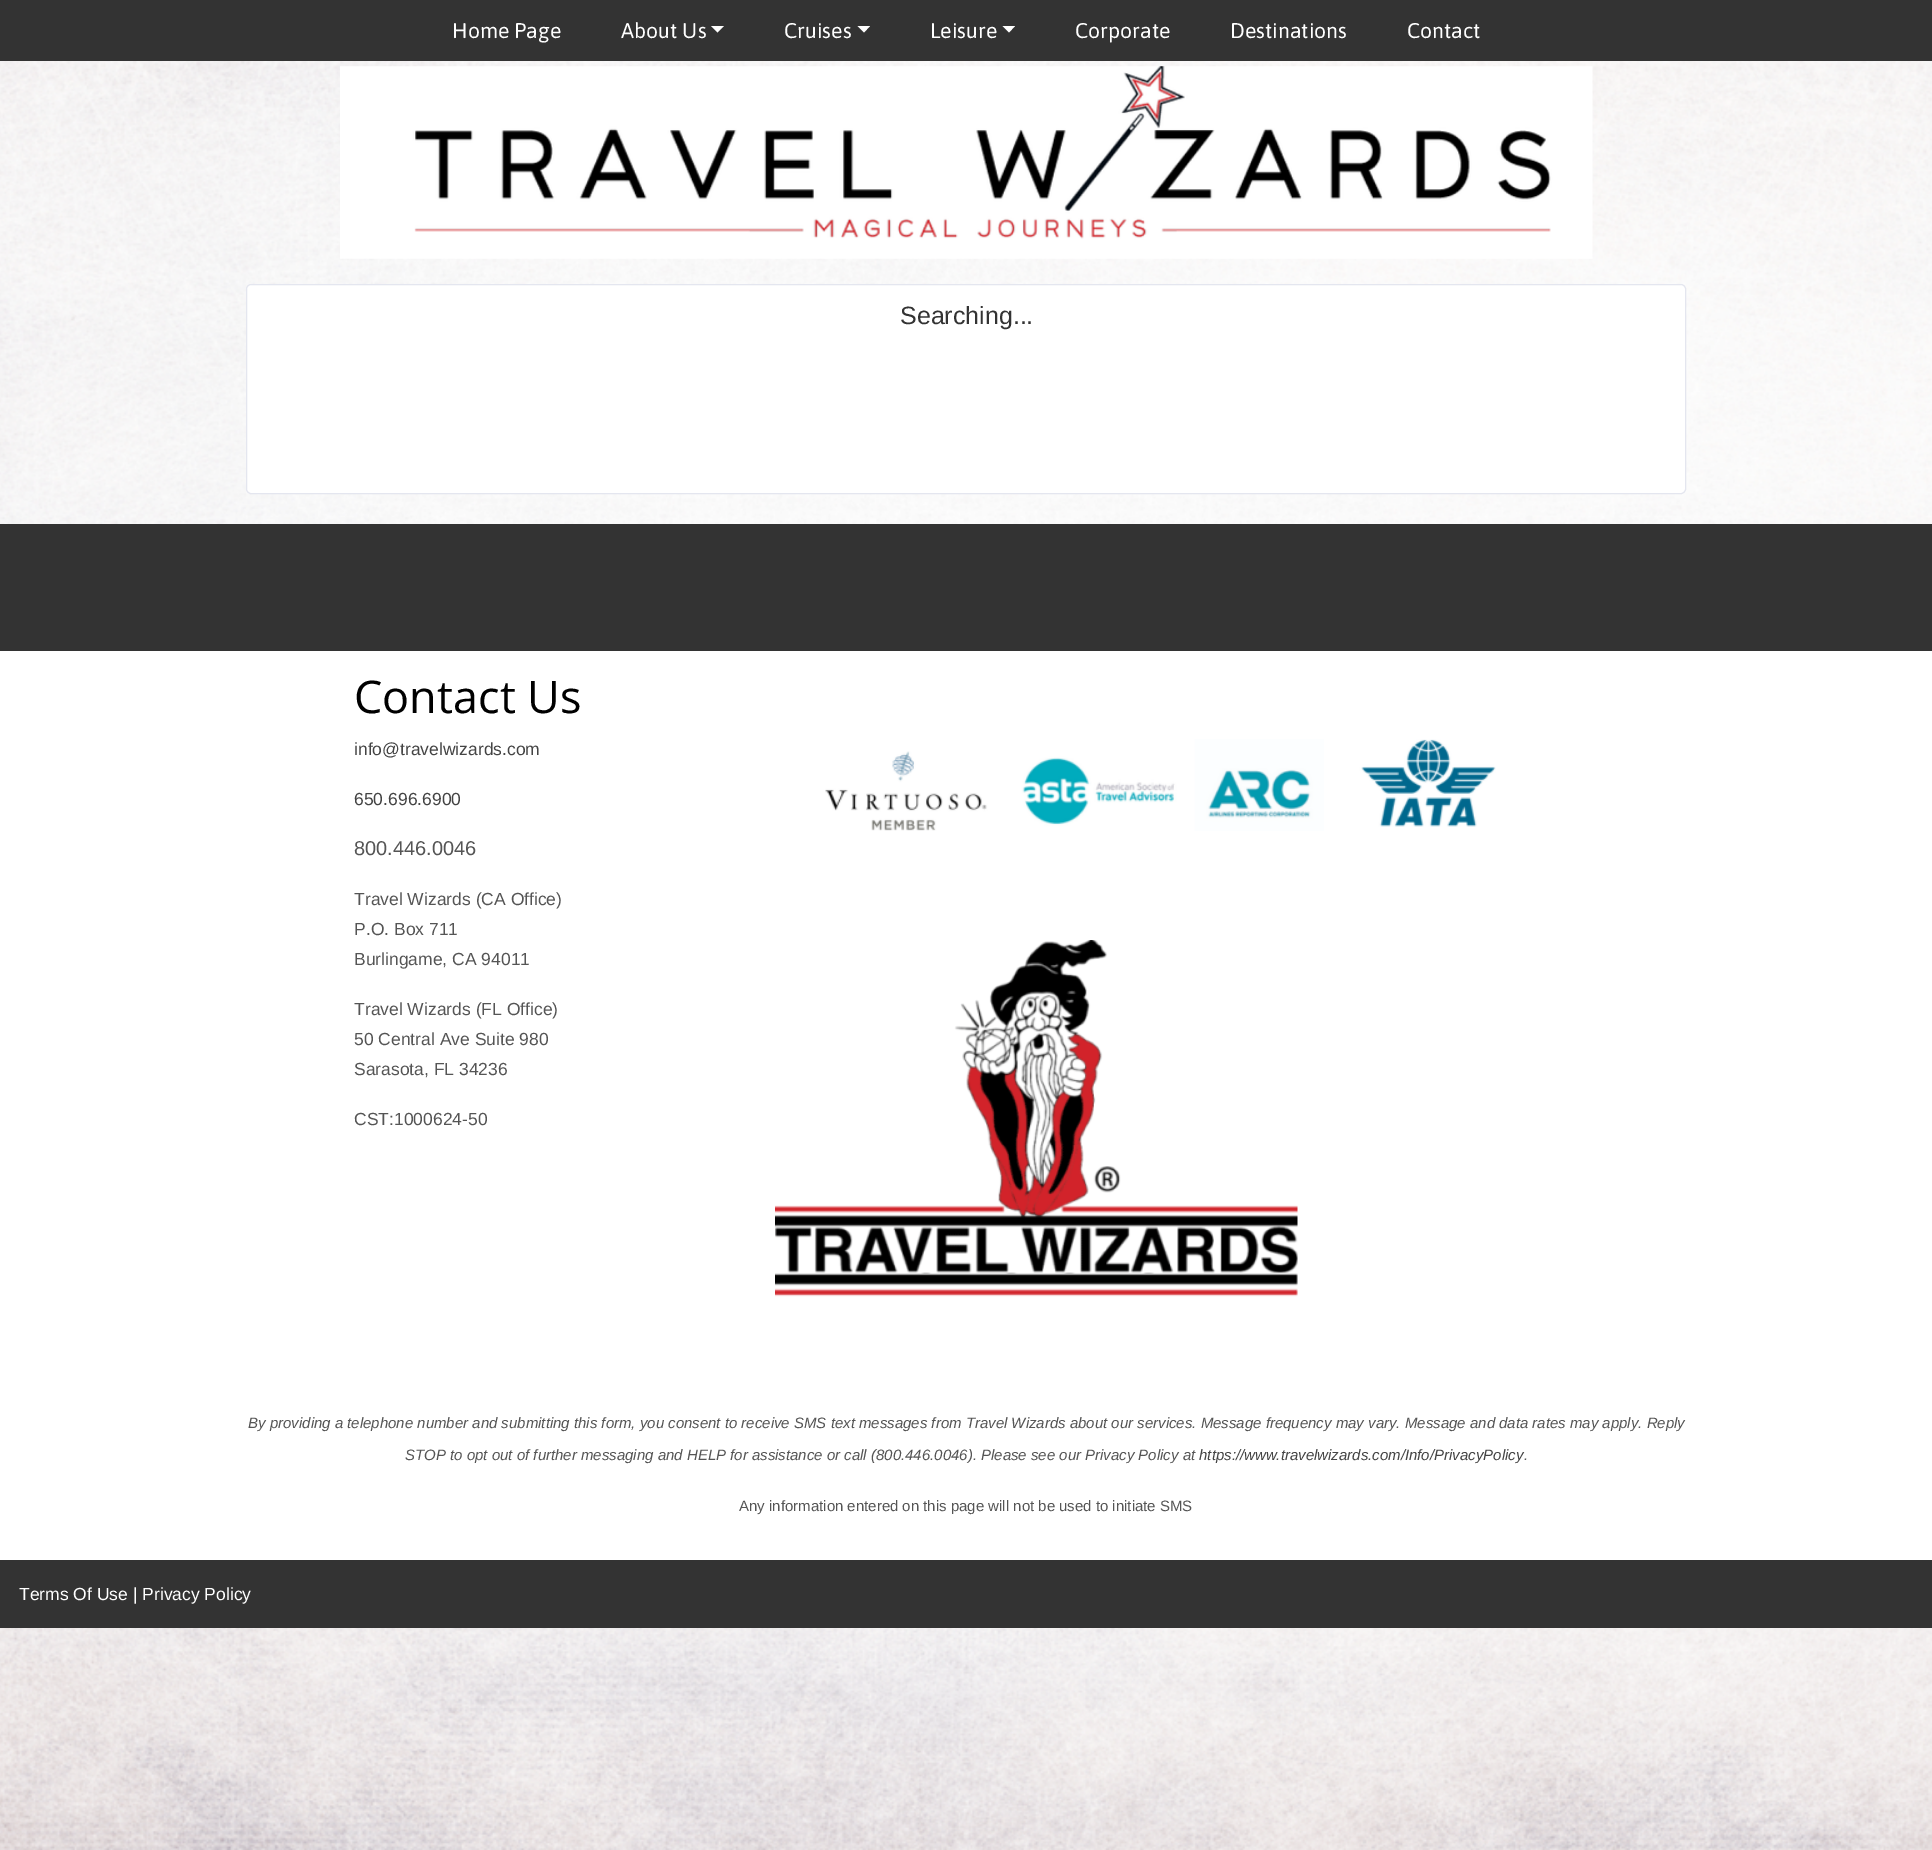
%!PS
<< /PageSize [1932 1850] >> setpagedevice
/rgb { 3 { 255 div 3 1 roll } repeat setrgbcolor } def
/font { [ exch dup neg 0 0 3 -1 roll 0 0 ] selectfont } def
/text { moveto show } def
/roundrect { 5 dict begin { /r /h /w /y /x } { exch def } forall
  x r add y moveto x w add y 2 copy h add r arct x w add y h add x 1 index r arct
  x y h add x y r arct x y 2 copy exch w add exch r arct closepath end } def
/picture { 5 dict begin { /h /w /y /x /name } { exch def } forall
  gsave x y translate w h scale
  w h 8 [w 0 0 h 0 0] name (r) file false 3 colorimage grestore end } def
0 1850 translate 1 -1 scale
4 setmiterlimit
255 255 255 rgb
0 0 1932 1850 rectfill
(img_01.rgb) 0 61 1932 1789 picture
51 51 51 rgb
0 0 1932 61 rectfill
255 255 255 rgb
711 26 moveto 13 0 rlineto -6.5 6.5 rlineto closepath fill
857.5 26 moveto 12.5 0 rlineto -6 6.5 rlineto closepath fill
1002.5 26 moveto 12.5 0 rlineto -6 6.5 rlineto closepath fill
(img_02.rgb) 340 66 1253 193 picture
246.5 284.5 1439 209 4.5 roundrect gsave fill grestore
228 230 239 rgb
stroke
255 255 255 rgb
0 651 1932 909 rectfill
51 51 51 rgb
0 524 1932 127 rectfill
(img_03.rgb) 825 739 671 92 picture
(img_04.rgb) 775 940 523 357 picture
0 1560 1932 68 rectfill
/Asap-Regular 21.25 font
255 255 255 rgb
(Home Page) 452 38 text
(About Us) 621 38 text
(Cruises) 784 38 text
(Leisure) 930 38 text
(Corporate) 1075 38 text
(Destinations) 1230 38 text
(Contact) 1407 38 text
/LiberationSans-Regular 25 font
51 51 51 rgb
(Searching...) 900 324 text
/OpenSans-Regular 45 font
0 0 0 rgb
(Contact Us) 354 713 text
/LiberationSans-Regular 17.5 font
68 68 68 rgb
(info@travelwizards.com) 354 755 text
(650.696.6900) 354 805 text
/LiberationSans-Regular 20 font
85 85 85 rgb
(800.446.0046) 354 855 text
/LiberationSans-Regular 17.5 font
(Travel Wizards \(CA Office\)) 354 905 text
(P.O. Box 711) 354 935 text
(Burlingame, CA 94011) 354 965 text
(Travel Wizards \(FL Office\)) 354 1015 text
(50 Central Ave Suite 980) 354 1045 text
(Sarasota, FL 34236) 354 1075 text
(CST:1000624-50) 354 1125 text
/LiberationSans-Italic 15 font
(By providing a telephone number and submitting this form, you consent to receive SMS text messages from Travel Wizards about our services. Message frequency may vary. Message and data rates may apply. Reply) 248 1428 text
(STOP to opt out of further messaging and HELP for assistance or call \(800.446.0046\). Please see our Privacy Policy at) 405 1460 text
68 68 68 rgb
(https://www.travelwizards.com/Info/PrivacyPolicy) 1199 1460 text
85 85 85 rgb
(.) 1524 1460 text
/LiberationSans-Regular 15 font
(Any information entered on this page will not be used to initiate SMS) 739 1511 text
/LiberationSans-Regular 17.5 font
255 255 255 rgb
(Terms Of Use | Privacy Policy) 19 1600 text
showpage
